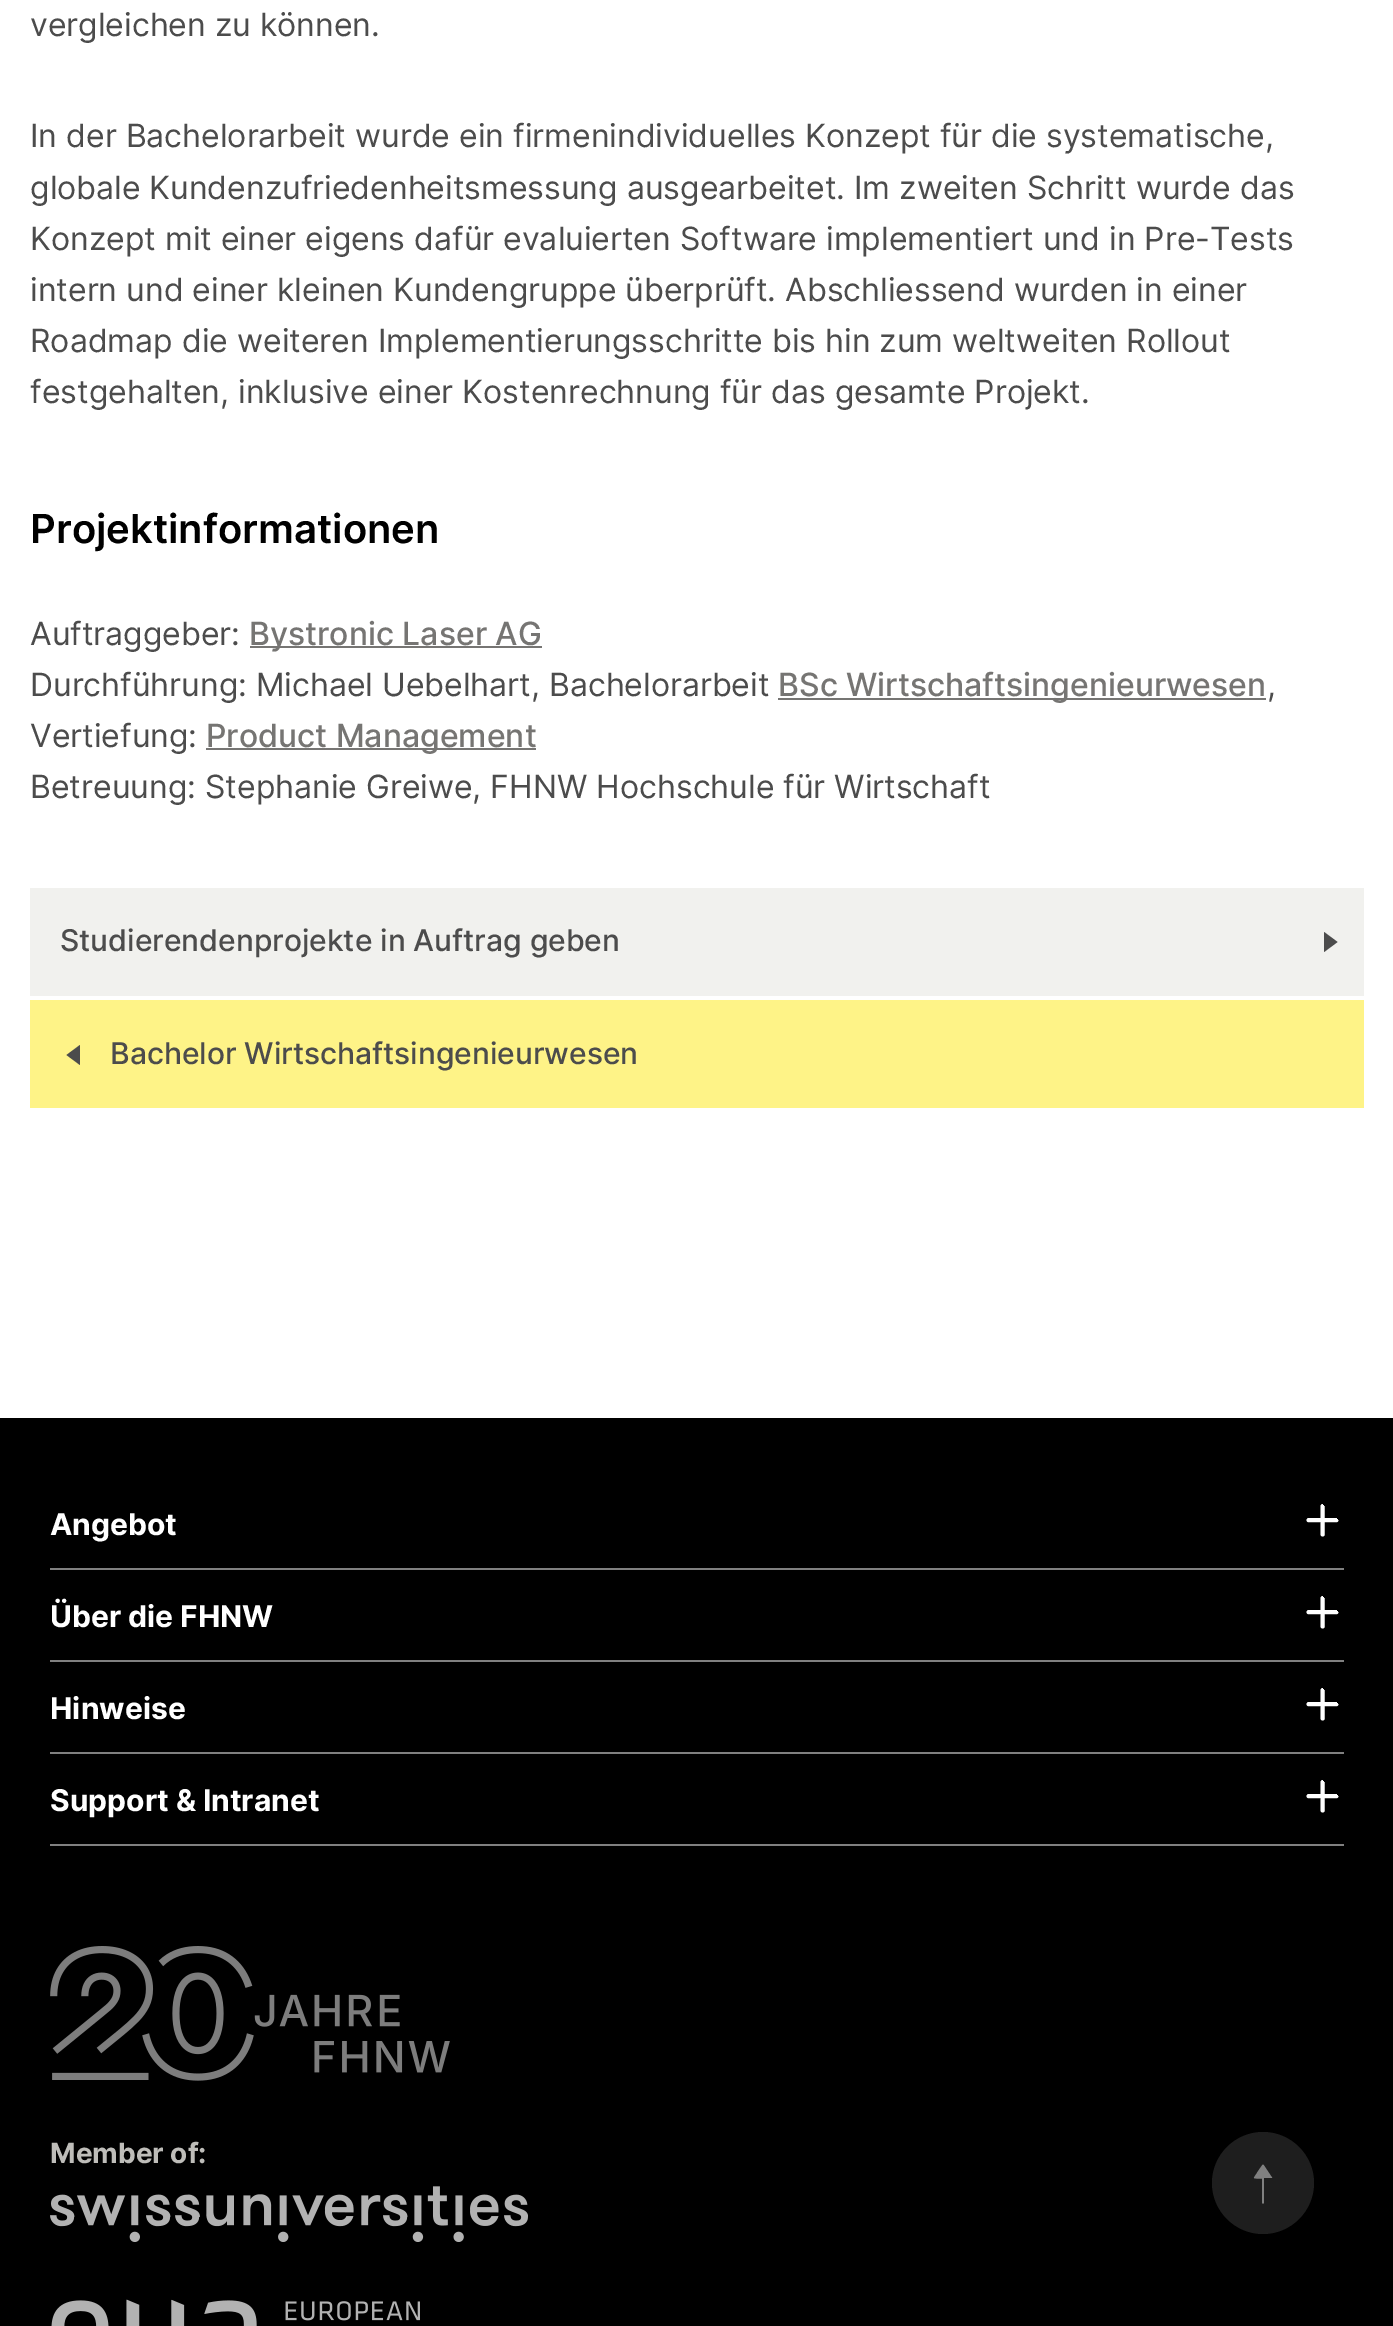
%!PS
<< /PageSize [1393 2326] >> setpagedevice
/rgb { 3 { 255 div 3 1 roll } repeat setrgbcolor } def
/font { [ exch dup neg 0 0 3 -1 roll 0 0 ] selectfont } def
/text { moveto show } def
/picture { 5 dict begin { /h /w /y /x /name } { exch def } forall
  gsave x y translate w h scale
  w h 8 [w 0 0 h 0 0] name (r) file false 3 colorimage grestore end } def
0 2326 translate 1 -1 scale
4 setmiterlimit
255 255 255 rgb
0 0 1393 2326 rectfill
118 117 115 rgb
250 646 292 2 rectfill
778 698 488 2 rectfill
206 748 330 2 rectfill
241 241 238 rgb
30 888 1334 108 rectfill
76 76 76 rgb
1324 952 moveto 0 -20 rlineto 13.5 10 rlineto closepath fill
254 243 135 rgb
30 1000 1334 108 rectfill
76 76 76 rgb
80 1045 moveto 0 20 rlineto -13.5 -10 rlineto closepath fill
0 0 0 rgb
0 1418 1393 908 rectfill
128 128 128 rgb
50 1568 1294 2 rectfill
gsave
1322 1504 moveto 17 17 rlineto -17 17 rlineto -17 -17 rlineto closepath clip newpath
1322 1504 moveto 17 17 rlineto -17 17 rlineto -17 -17 rlineto closepath clip newpath
255 255 255 rgb
4 setlinewidth
1 setlinecap
1 setlinejoin
1336.5 1520 moveto -28 0 rlineto 1322.5 1534.5 moveto 0 -28.5 rlineto stroke
grestore
50 1660 1294 2 rectfill
gsave
1322 1596 moveto 17 17 rlineto -17 17 rlineto -17 -17 rlineto closepath clip newpath
1322 1596 moveto 17 17 rlineto -17 17 rlineto -17 -17 rlineto closepath clip newpath
255 255 255 rgb
4 setlinewidth
1 setlinecap
1 setlinejoin
1336.5 1612 moveto -28 0 rlineto 1322.5 1626.5 moveto 0 -28.5 rlineto stroke
grestore
50 1752 1294 2 rectfill
gsave
1322 1688 moveto 17 17 rlineto -17 17 rlineto -17 -17 rlineto closepath clip newpath
1322 1688 moveto 17 17 rlineto -17 17 rlineto -17 -17 rlineto closepath clip newpath
255 255 255 rgb
4 setlinewidth
1 setlinecap
1 setlinejoin
1336.5 1704 moveto -28 0 rlineto 1322.5 1718.5 moveto 0 -28.5 rlineto stroke
grestore
50 1844 1294 2 rectfill
gsave
1322 1780 moveto 17 17 rlineto -17 17 rlineto -17 -17 rlineto closepath clip newpath
1322 1780 moveto 17 17 rlineto -17 17 rlineto -17 -17 rlineto closepath clip newpath
255 255 255 rgb
4 setlinewidth
1 setlinecap
1 setlinejoin
1336.5 1796 moveto -28 0 rlineto 1322.5 1810.5 moveto 0 -28.5 rlineto stroke
grestore
(img_01.rgb) 50 1946 400 135 picture
(img_02.rgb) 50 2186 478 56 picture
(img_03.rgb) 51 2299 369 27 picture
30 30 30 rgb
1263 2234 moveto 28 0 51 -23 51 -51 rcurveto 0 -28 -23 -51 -51 -51 rcurveto -28 0 -51 23 -51 51 rcurveto 0 28 23 51 51 51 rcurveto closepath fill
128 128 128 rgb
1264.5 2178 moveto 7.5 0 rlineto 0 0 0.5 -0.5 0 -0.5 rcurveto -7 -10.5 rlineto -2.5 -4 -2 -2.5 -5.5 2 rcurveto -5.5 8.5 rlineto -0.5 1.5 6.5 1 8 1 rcurveto 0 25 rlineto 2 0 rlineto 0 -25.5 rlineto closepath fill
/Inter-Regular 32 font
76 76 76 rgb
(vergleichen zu können.) 30 36 text
(In der Bachelorarbeit wurde ein firmenindividuelles Konzept für die systematische,) 30 147 text
(globale Kundenzufriedenheitsmessung ausgearbeitet. Im zweiten Schritt wurde das) 30 199 text
(Konzept mit einer eigens dafür evaluierten Software implementiert und in Pre-Tests) 30 250 text
(intern und einer kleinen Kundengruppe überprüft. Abschliessend wurden in einer) 30 301 text
(Roadmap die weiteren Implementierungsschritte bis hin zum weltweiten Rollout) 30 352 text
(festgehalten, inklusive einer Kostenrechnung für das gesamte Projekt.) 30 403 text
/Inter-SemiBold 40 font
0 0 0 rgb
(Projektinformationen) 30 543 text
/Inter-Regular 32 font
76 76 76 rgb
(Auftraggeber:) 30 645 text
/Inter-Medium 32 font
118 117 115 rgb
(Bystronic Laser AG) 249 645 text
/Inter-Regular 32 font
76 76 76 rgb
(Durchführung: Michael Uebelhart, Bachelorarbeit) 30 696 text
/Inter-Medium 32 font
118 117 115 rgb
(BSc Wirtschaftsingenieurwesen) 778 696 text
/Inter-Regular 32 font
76 76 76 rgb
(,) 1267 696 text
(Vertiefung:) 30 747 text
/Inter-Medium 32 font
118 117 115 rgb
(Product Management) 206 747 text
/Inter-Regular 32 font
76 76 76 rgb
(Betreuung: Stephanie Greiwe, FHNW Hochschule für Wirtschaft) 30 798 text
/Inter-Medium 30 font
(Studierendenprojekte in Auftrag geben) 60 951 text
(Bachelor Wirtschaftsingenieurwesen) 110 1064 text
/Inter-Bold 30 font
255 255 255 rgb
(Angebot) 50 1535 text
(Über die FHNW) 50 1627 text
(Hinweise) 50 1719 text
(Support & Intranet) 50 1811 text
/Inter-Bold 28 font
190 189 185 rgb
(Member of:) 50 2163 text
showpage
